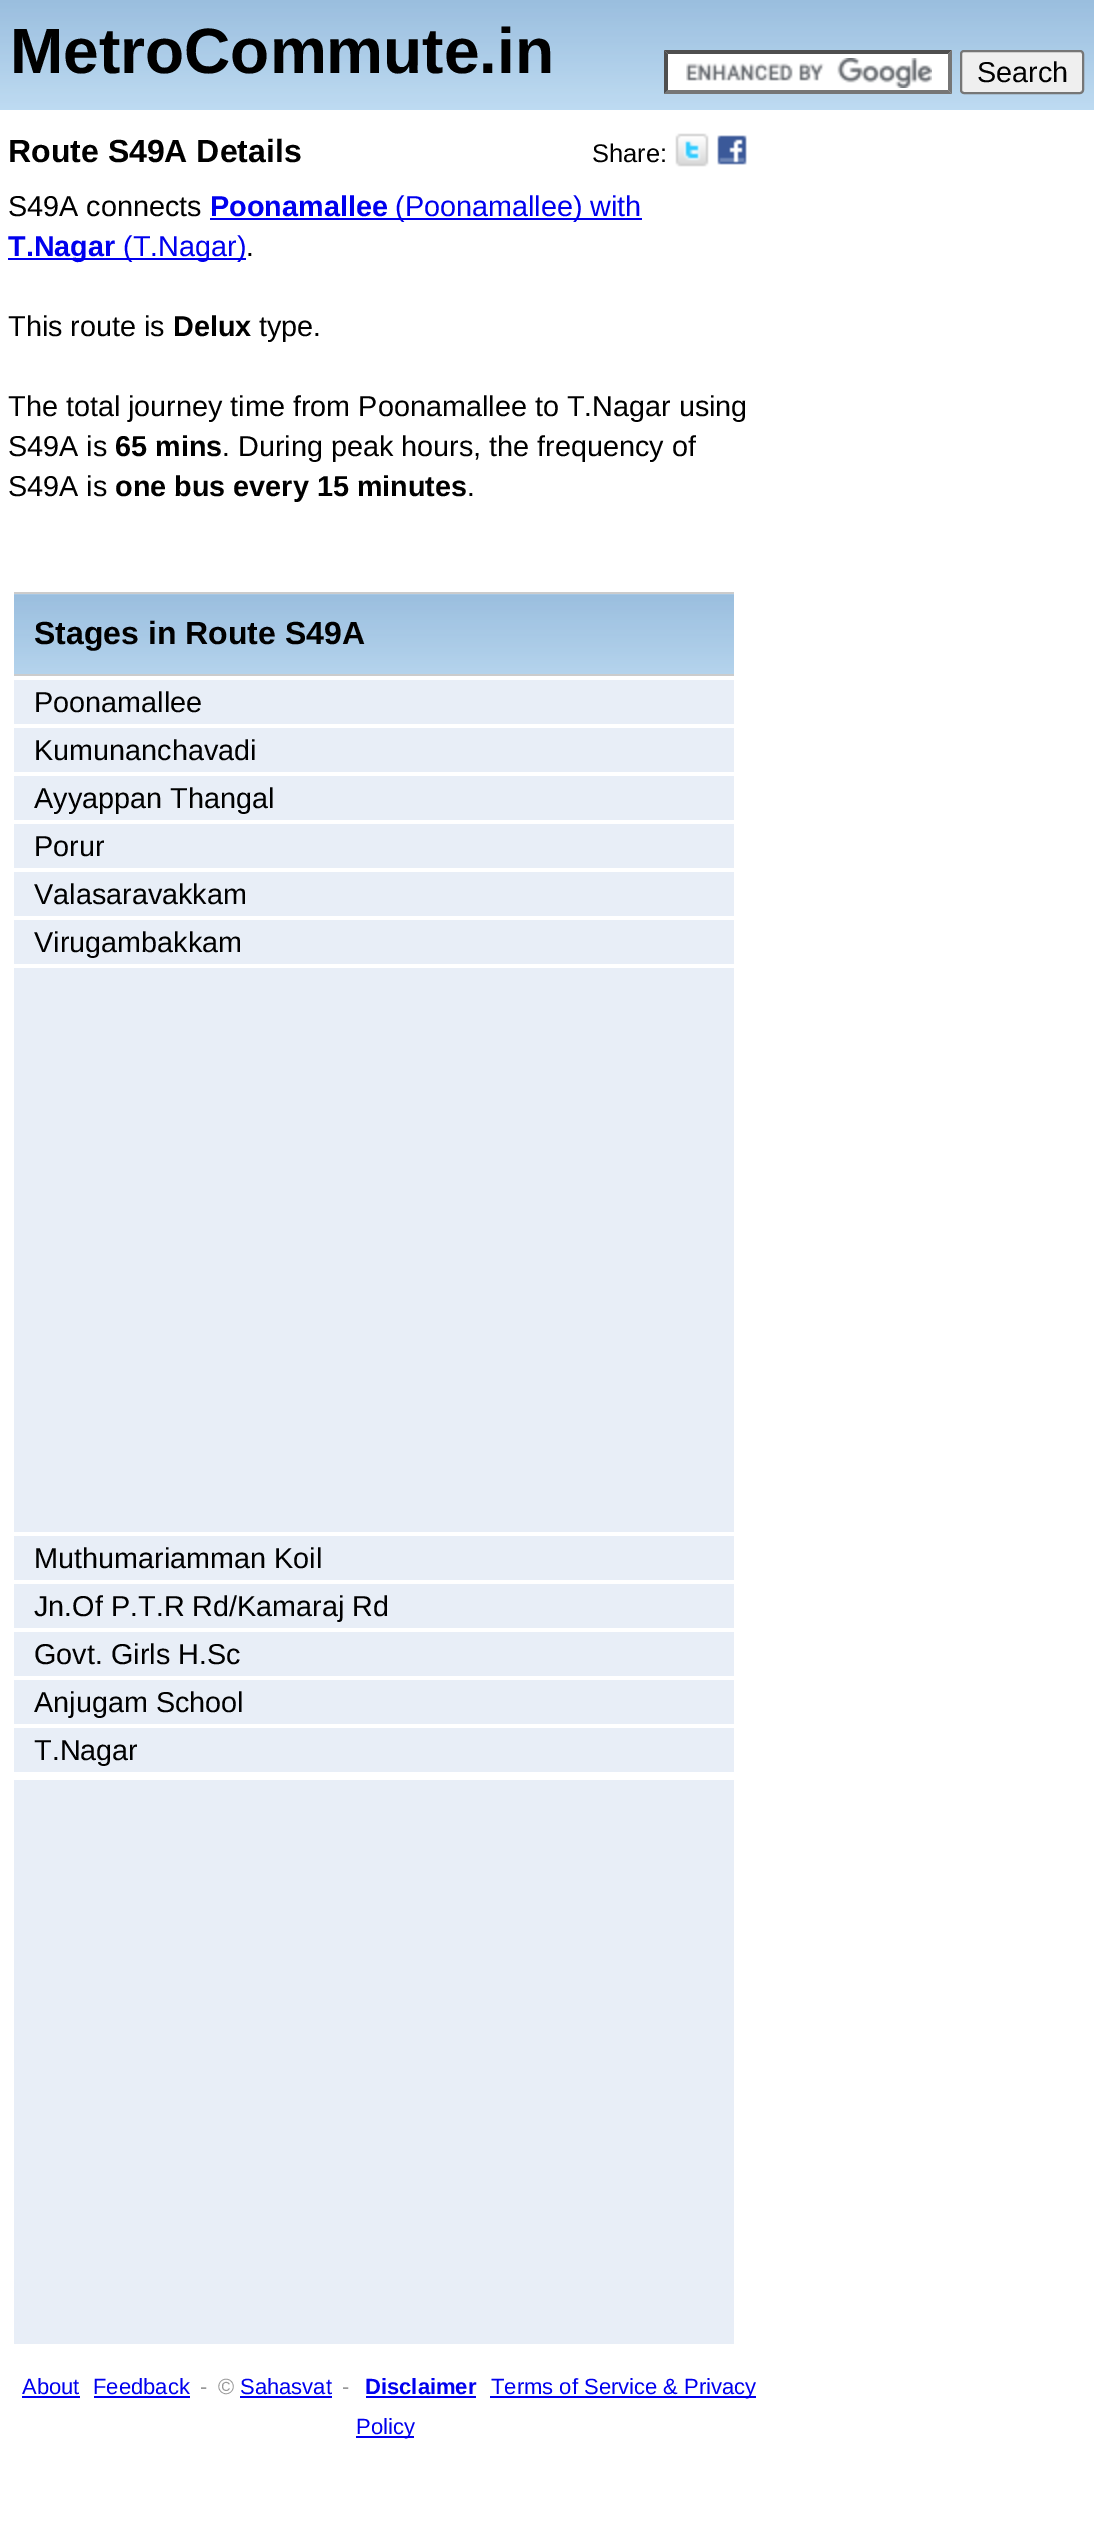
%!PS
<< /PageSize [1094 2521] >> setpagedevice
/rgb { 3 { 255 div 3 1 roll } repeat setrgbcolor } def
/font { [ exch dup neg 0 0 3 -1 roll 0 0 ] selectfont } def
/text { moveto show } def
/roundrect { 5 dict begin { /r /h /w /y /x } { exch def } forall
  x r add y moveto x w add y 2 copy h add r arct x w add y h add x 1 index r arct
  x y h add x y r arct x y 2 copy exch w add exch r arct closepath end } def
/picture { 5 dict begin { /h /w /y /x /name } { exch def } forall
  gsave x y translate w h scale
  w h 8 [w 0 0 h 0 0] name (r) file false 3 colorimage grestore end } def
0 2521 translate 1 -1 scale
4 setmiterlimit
255 255 255 rgb
0 0 1094 2521 rectfill
(img_01.rgb) 0 0 1094 110 picture
664 50 288 44 rectfill
(img_02.rgb) 686 58 246 30 picture
79 79 79 rgb
664 50 moveto 288 0 rlineto -4 4 rlineto -280 0 rlineto closepath fill
118 118 118 rgb
952 50 moveto 0 44 rlineto -4 -4 rlineto 0 -36 rlineto closepath fill
952 94 moveto -288 0 rlineto 4 -4 rlineto 280 0 rlineto closepath fill
79 79 79 rgb
664 94 moveto 0 -44 rlineto 4 4 rlineto 0 36 rlineto closepath fill
239 239 239 rgb
961 51 122 42 3 roundrect gsave fill grestore
118 118 118 rgb
2 setlinewidth
stroke
(img_03.rgb) 675 133 72 34 picture
0 0 238 rgb
210 218 432 2 rectfill
8 258 238 2 rectfill
(img_04.rgb) 14 594 720 80 picture
204 204 204 rgb
14 592 720 2 rectfill
14 674 720 2 rectfill
232 238 247 rgb
14 680 720 44 rectfill
14 728 720 44 rectfill
14 776 720 44 rectfill
14 824 720 44 rectfill
14 872 720 44 rectfill
14 920 720 44 rectfill
14 968 720 564 rectfill
14 1536 720 44 rectfill
14 1584 720 44 rectfill
14 1632 720 44 rectfill
14 1680 720 44 rectfill
14 1728 720 44 rectfill
14 1780 720 564 rectfill
0 0 238 rgb
22 2396 58 2 rectfill
94 2396 96 2 rectfill
240 2396 92 2 rectfill
366 2396 110 2 rectfill
490 2396 266 2 rectfill
356 2436 58 2 rectfill
/LiberationSans-Bold 64 font
0 0 0 rgb
(MetroCommute.in) 10 73 text
/LiberationSans-Regular 28.8 font
(Search) 977 82 text
/LiberationSans-Bold 32 font
(Route S49A Details) 8 162 text
/LiberationSans-Regular 25.5 font
(Share:) 592 162 text
/LiberationSans-Regular 28.8 font
(S49A connects) 8 216 text
/LiberationSans-Bold 28.8 font
0 0 238 rgb
(Poonamallee) 210 216 text
/LiberationSans-Regular 28.8 font
(\(Poonamallee\) with) 395 216 text
/LiberationSans-Bold 28.8 font
(T.Nagar) 8 256 text
/LiberationSans-Regular 28.8 font
(\(T.Nagar\)) 123 256 text
0 0 0 rgb
(.) 246 256 text
(This route is) 8 336 text
/LiberationSans-Bold 28.8 font
(Delux) 173 336 text
/LiberationSans-Regular 28.8 font
(type.) 259 336 text
(The total journey time from Poonamallee to T.Nagar using) 8 416 text
(S49A is) 8 456 text
/LiberationSans-Bold 28.8 font
(65 mins) 115 456 text
/LiberationSans-Regular 28.8 font
(. During peak hours, the frequency of) 222 456 text
(S49A is) 8 496 text
/LiberationSans-Bold 28.8 font
(one bus every 15 minutes) 115 496 text
/LiberationSans-Regular 28.8 font
(.) 467 496 text
/LiberationSans-Bold 32 font
(Stages in Route S49A) 34 644 text
/LiberationSans-Regular 28.8 font
(Poonamallee) 34 712 text
(Kumunanchavadi) 34 760 text
(Ayyappan Thangal) 34 808 text
(Porur) 34 856 text
(Valasaravakkam) 34 904 text
(Virugambakkam) 34 952 text
(Muthumariamman Koil) 34 1568 text
(Jn.Of P.T.R Rd/Kamaraj Rd) 34 1616 text
(Govt. Girls H.Sc) 34 1664 text
(Anjugam School) 34 1712 text
(T.Nagar) 34 1760 text
/LiberationSans-Regular 22 font
0 0 238 rgb
(About) 22 2394 text
(Feedback) 93 2394 text
153 153 153 rgb
(-) 200 2394 text
(©) 218 2394 text
0 0 238 rgb
(Sahasvat) 240 2394 text
153 153 153 rgb
(-) 342 2394 text
/LiberationSans-Bold 22 font
0 0 238 rgb
(Disclaimer) 365 2394 text
/LiberationSans-Regular 22 font
(Terms of Service & Privacy) 491 2394 text
(Policy) 356 2434 text
showpage
